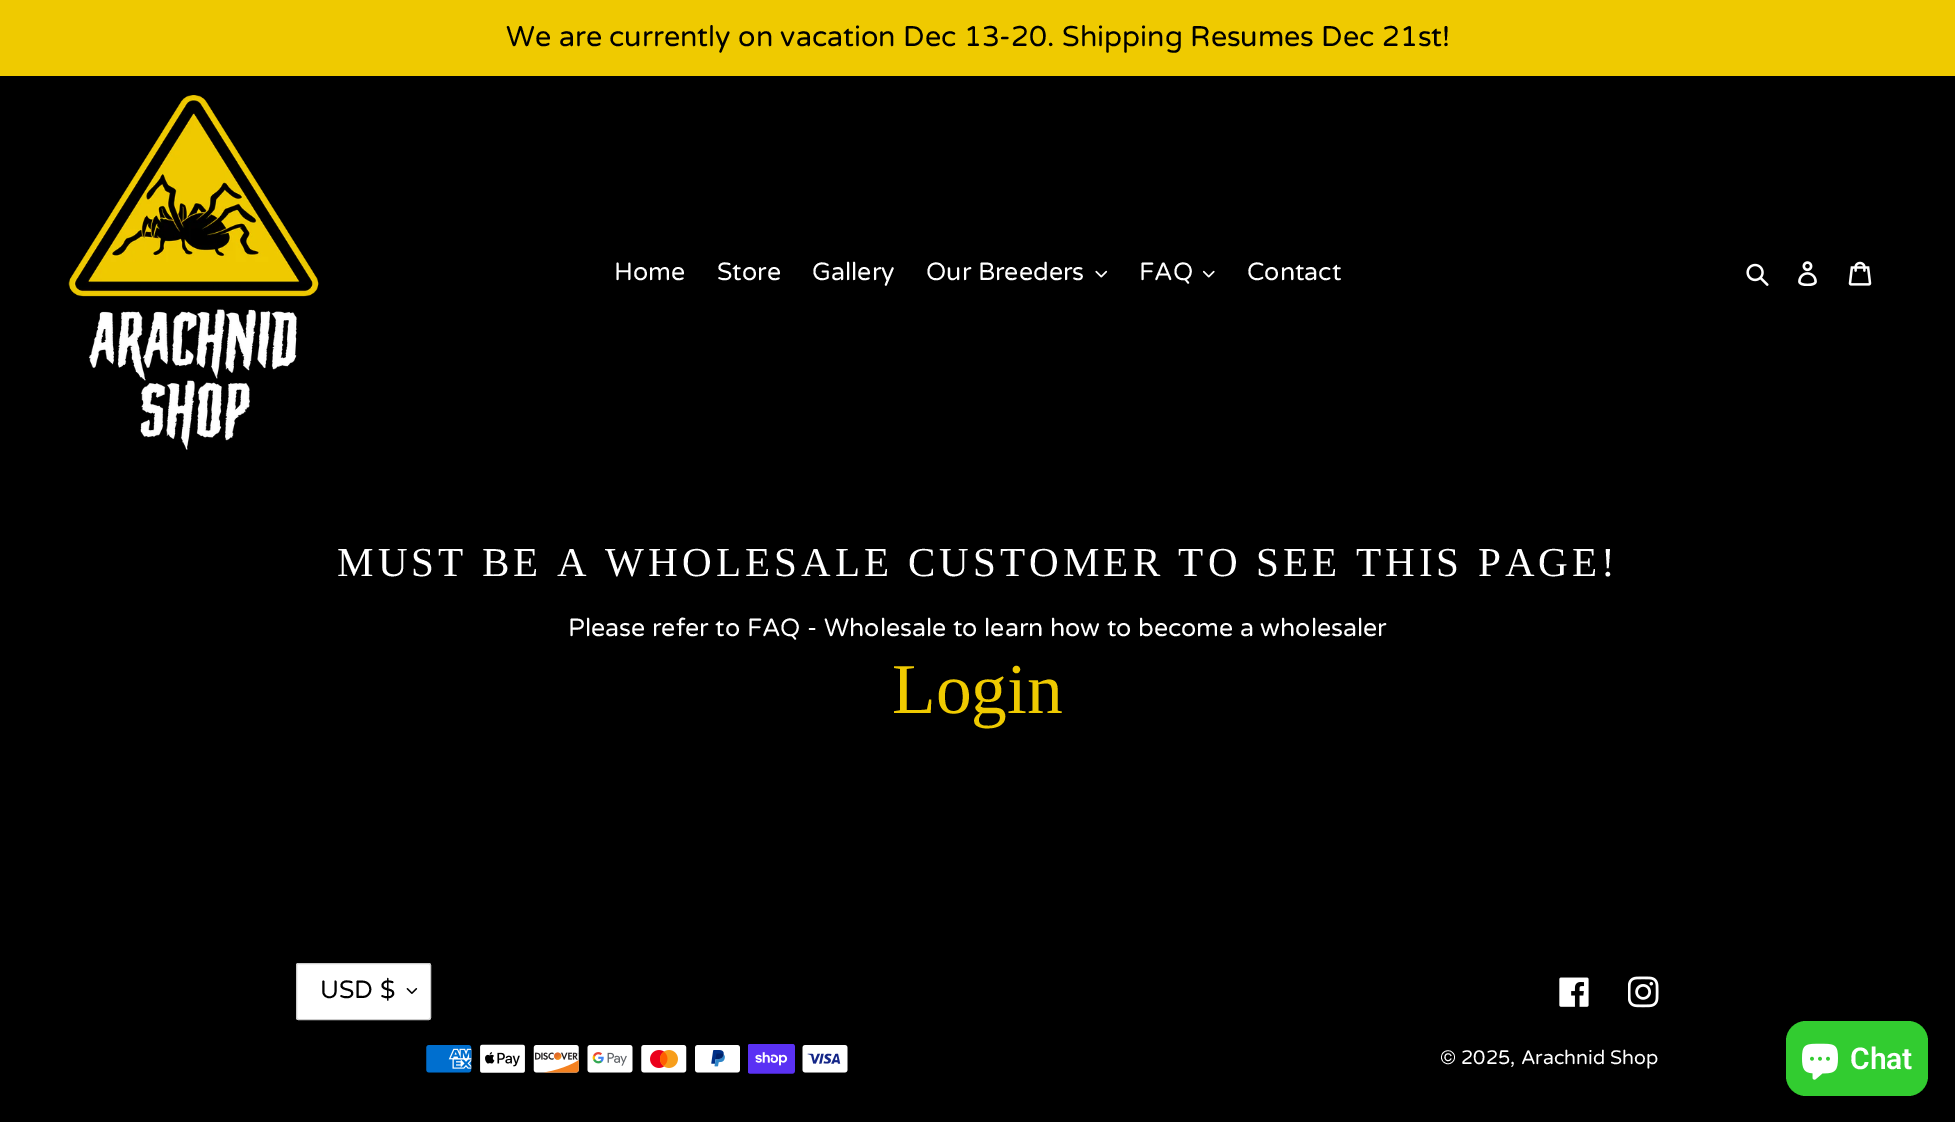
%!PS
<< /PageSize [1955 1122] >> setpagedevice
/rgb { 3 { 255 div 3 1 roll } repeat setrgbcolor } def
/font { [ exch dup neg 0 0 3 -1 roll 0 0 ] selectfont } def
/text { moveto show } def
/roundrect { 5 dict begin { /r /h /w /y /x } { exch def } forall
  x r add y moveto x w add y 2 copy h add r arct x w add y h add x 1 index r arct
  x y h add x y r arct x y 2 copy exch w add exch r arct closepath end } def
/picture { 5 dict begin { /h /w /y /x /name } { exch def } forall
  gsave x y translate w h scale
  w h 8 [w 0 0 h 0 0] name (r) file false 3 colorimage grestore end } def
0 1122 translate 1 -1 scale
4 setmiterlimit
0 0 0 rgb
0 0 1955 1122 rectfill
239 202 0 rgb
0 0 1955 76 rectfill
(img_01.rgb) 68 95 251 355 picture
(img_02.rgb) 1095 270 13 8 picture
(img_03.rgb) 1203 270 12 8 picture
(img_04.rgb) 1746 263 23 23 picture
(img_05.rgb) 1798 261 19 25 picture
(img_06.rgb) 1848 261 24 25 picture
255 255 255 rgb
296 963 135 57 2.5 roundrect fill
(img_07.rgb) 406 988 12 6 picture
204 204 204 rgb
296.5 963.5 134 56 2 roundrect stroke
(img_08.rgb) 1559 977 30 30 picture
(img_09.rgb) 1628 976 31 32 picture
(img_10.rgb) 426 1045 46 28 picture
(img_11.rgb) 480 1044 45 29 picture
(img_12.rgb) 533 1045 46 28 picture
(img_13.rgb) 587 1045 46 28 picture
(img_14.rgb) 641 1045 46 28 picture
(img_15.rgb) 695 1045 45 28 picture
(img_16.rgb) 748 1044 47 30 picture
(img_17.rgb) 802 1045 46 28 picture
50 204 48 rgb
1786 1021 142 75 20 roundrect fill
(img_18.rgb) 1802 1043 36 37 picture
/VarelaRound-Regular 28.6 font
0 0 0 rgb
(We are currently on vacation Dec 13-20. Shipping Resumes Dec 21st!) 506 46 text
/VarelaRound-Regular 25 font
255 255 255 rgb
(Home) 614 280 text
(Store) 717 280 text
(Gallery) 812 280 text
(Our Breeders) 926 280 text
(FAQ) 1139 280 text
(Contact) 1247 280 text
/LiberationSerif-Regular 41.1 font
337 576 moveto 4.1 0 (MUST BE A WHOLESALE CUSTOMER TO SEE THIS PAGE!) ashow
/VarelaRound-Regular 25 font
(Please refer to FAQ - Wholesale to learn how to become a wholesaler) 568 636 text
/LiberationSerif-Regular 71.5 font
239 202 0 rgb
(Login) 892 713 text
/VarelaRound-Regular 25 font
0 0 0 rgb
(USD $) 320 998 text
/VarelaRound-Regular 19.6 font
255 255 255 rgb
(© 2025, Arachnid Shop) 1440 1064 text
/Roboto-SemiBold 30 font
(Chat) 1850 1069 text
showpage
